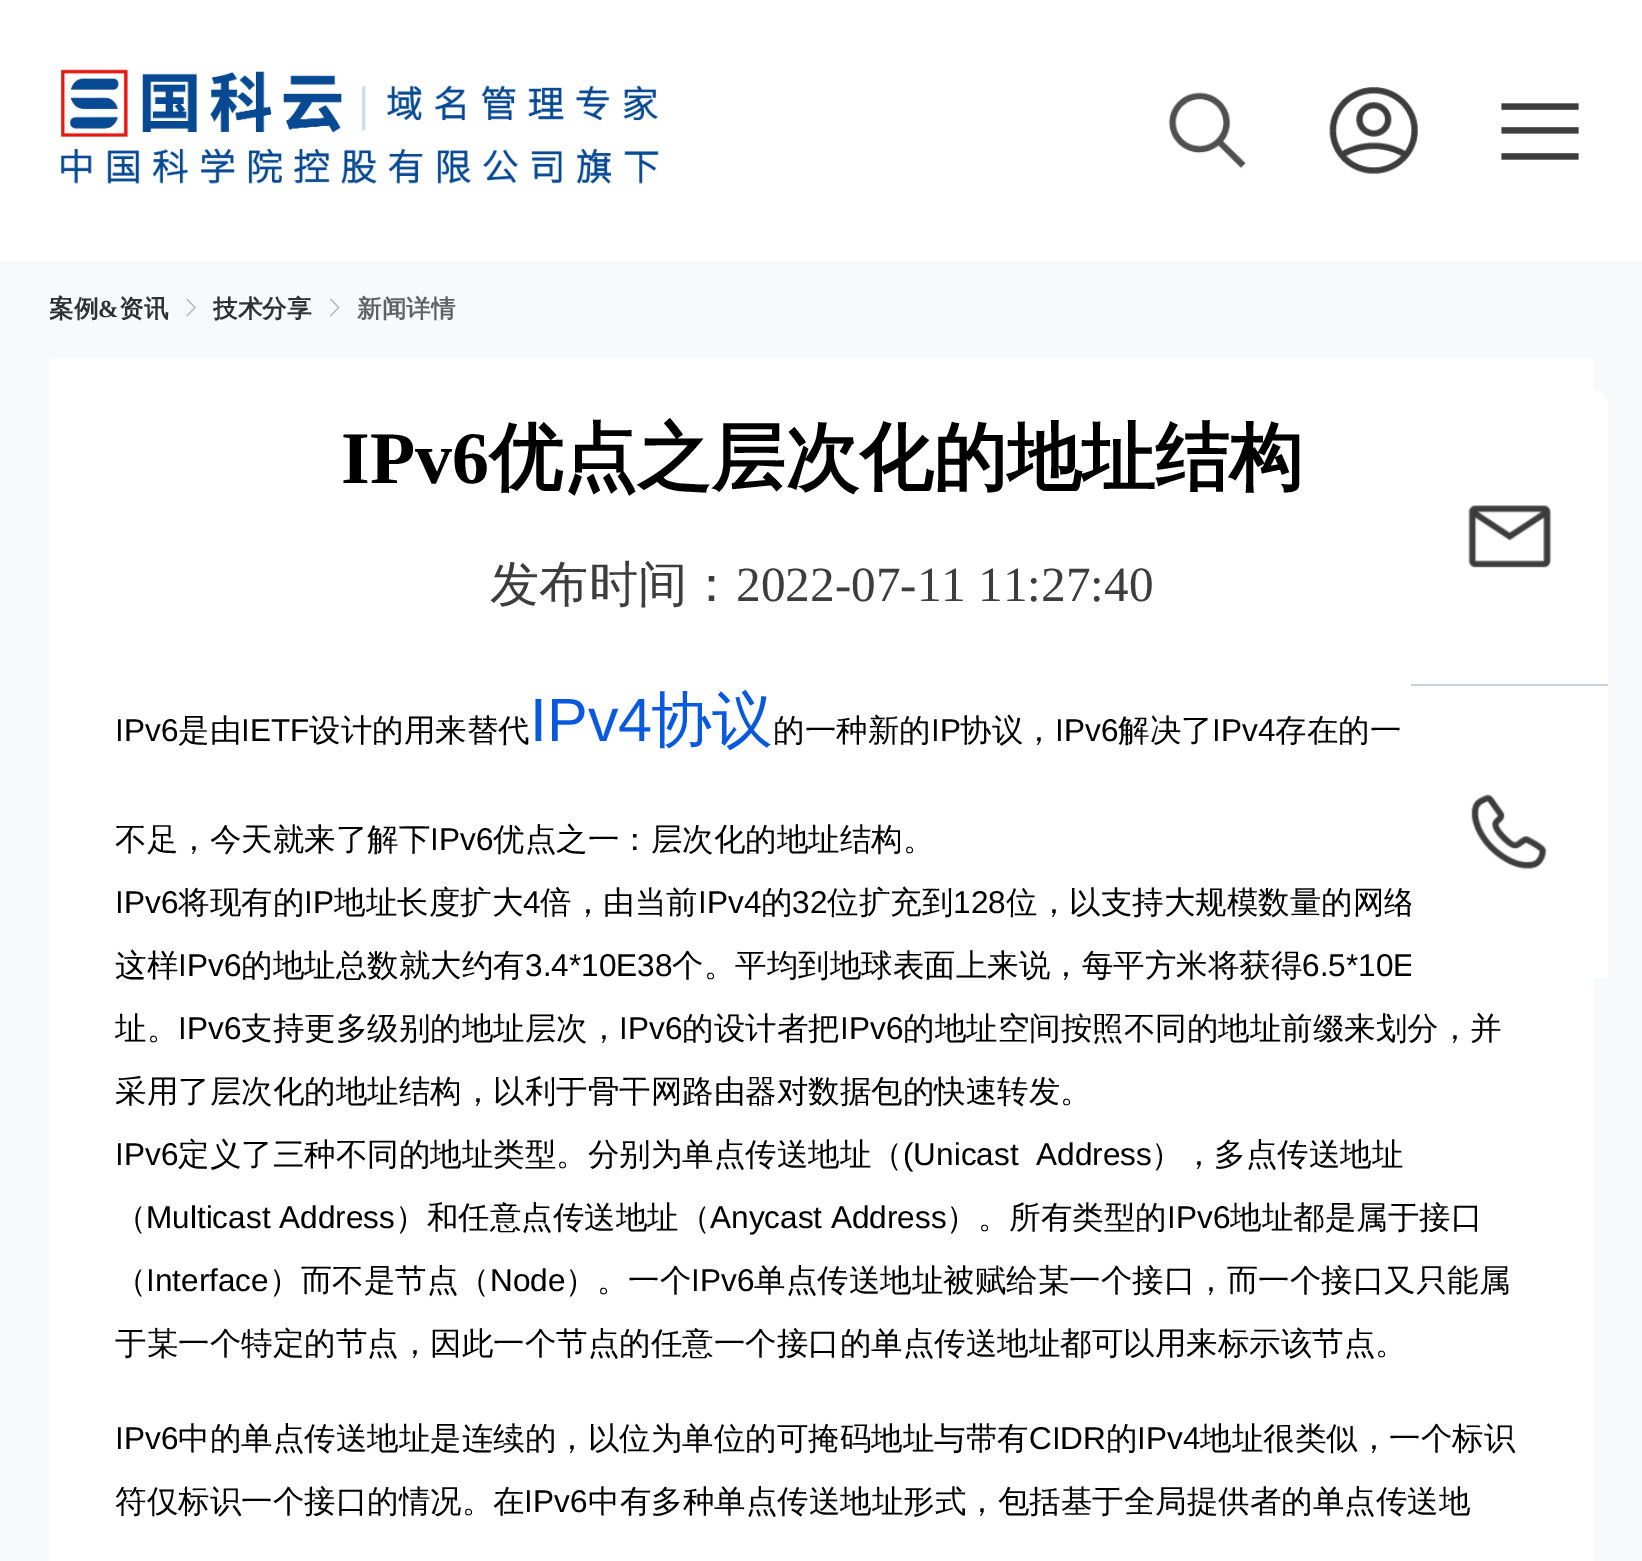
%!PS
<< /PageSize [1642 1561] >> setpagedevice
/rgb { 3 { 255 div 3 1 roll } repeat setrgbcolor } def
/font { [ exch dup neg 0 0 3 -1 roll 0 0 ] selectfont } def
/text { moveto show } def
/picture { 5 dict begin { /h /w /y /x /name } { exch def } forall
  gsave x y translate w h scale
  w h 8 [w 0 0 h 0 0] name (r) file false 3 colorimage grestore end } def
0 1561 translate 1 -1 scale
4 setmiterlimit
248 249 252 rgb
0 0 1642 1561 rectfill
255 255 255 rgb
0 0 1642 261 rectfill
(img_01.rgb) 61 69 598 115 picture
(img_02.rgb) 1168 92 78 77 picture
(img_03.rgb) 1329 87 89 87 picture
(img_04.rgb) 1501 103 78 57 picture
(img_05.rgb) 186 298 10 19 picture
(img_06.rgb) 330 298 10 19 picture
49 359 1545 1202 rectfill
1425 390 moveto 169 0 rlineto 7.5 0 14 6.5 14 14 rcurveto 0 280 rlineto -197 0 rlineto 0 -280 rlineto 0 -7.5 6.5 -14 14 -14 rcurveto closepath fill
(img_07.rgb) 1468 505 84 63 picture
202 206 218 rgb
1411 684 197 2 rectfill
/WenQuanYiZenHei-Bold 24.5 font
48 49 51 rgb
(案例) 49 317 text
/LiberationSerif-Bold 24.5 font
(&) 98 317 text
/WenQuanYiZenHei-Bold 24.5 font
(资讯) 119 317 text
(技术分享) 213 317 text
96 98 102 rgb
(新闻详情) 357 317 text
/LiberationSerif-Bold 74 font
0 0 0 rgb
(IPv6) 341 483 text
/WenQuanYiZenHei-Bold 74 font
(优点之层次化的地址结构) 489 483 text
/WenQuanYiZenHei-Medium 49.25 font
62 61 61 rgb
(发布时间：) 490 601 text
/LiberationSerif-Regular 49.25 font
(2022-07-11 11:27:40) 736 601 text
/LiberationSans-Regular 31.5 font
0 0 0 rgb
(IPv6) 115 741 text
/WenQuanYiZenHei-Medium 31.5 font
(是由) 178 741 text
/LiberationSans-Regular 31.5 font
(IETF) 241 741 text
/WenQuanYiZenHei-Medium 31.5 font
(设计的用来替代) 309 741 text
/LiberationSans-Regular 61 font
9 89 223 rgb
(IPv4) 530 741 text
/WenQuanYiZenHei-Medium 61 font
(协议) 651 741 text
/WenQuanYiZenHei-Medium 31.5 font
0 0 0 rgb
(的一种新的) 773 741 text
/LiberationSans-Regular 31.5 font
(IP) 931 741 text
/WenQuanYiZenHei-Medium 31.5 font
(协议，) 960 741 text
/LiberationSans-Regular 31.5 font
(IPv6) 1055 741 text
/WenQuanYiZenHei-Medium 31.5 font
(解决了) 1118 741 text
/LiberationSans-Regular 31.5 font
(IPv4) 1212 741 text
/WenQuanYiZenHei-Medium 31.5 font
(存在的一) 1275 741 text
(不足，今天就来了解下) 115 850 text
/LiberationSans-Regular 31.5 font
(IPv6) 430 850 text
/WenQuanYiZenHei-Medium 31.5 font
(优点之一：层次化的地址结构。) 493 850 text
/LiberationSans-Regular 31.5 font
(IPv6) 115 913 text
/WenQuanYiZenHei-Medium 31.5 font
(将现有的) 178 913 text
/LiberationSans-Regular 31.5 font
(IP) 304 913 text
/WenQuanYiZenHei-Medium 31.5 font
(地址长度扩大) 334 913 text
/LiberationSans-Regular 31.5 font
(4) 523 913 text
/WenQuanYiZenHei-Medium 31.5 font
(倍，由当前) 540 913 text
/LiberationSans-Regular 31.5 font
(IPv4) 698 913 text
/WenQuanYiZenHei-Medium 31.5 font
(的) 761 913 text
/LiberationSans-Regular 31.5 font
(32) 792 913 text
/WenQuanYiZenHei-Medium 31.5 font
(位扩充到) 827 913 text
/LiberationSans-Regular 31.5 font
(128) 953 913 text
/WenQuanYiZenHei-Medium 31.5 font
(位，以支持大规模数量的网络) 1006 913 text
(这样) 115 976 text
/LiberationSans-Regular 31.5 font
(IPv6) 178 976 text
/WenQuanYiZenHei-Medium 31.5 font
(的地址总数就大约有) 241 976 text
/LiberationSans-Regular 31.5 font
(3.4*10E38) 525 976 text
/WenQuanYiZenHei-Medium 31.5 font
(个。平均到地球表面上来说，每平方米将获得) 672 976 text
/LiberationSans-Regular 31.5 font
(6.5*10E) 1302 976 text
/WenQuanYiZenHei-Medium 31.5 font
(址。) 115 1039 text
/LiberationSans-Regular 31.5 font
(IPv6) 178 1039 text
/WenQuanYiZenHei-Medium 31.5 font
(支持更多级别的地址层次，) 241 1039 text
/LiberationSans-Regular 31.5 font
(IPv6) 619 1039 text
/WenQuanYiZenHei-Medium 31.5 font
(的设计者把) 682 1039 text
/LiberationSans-Regular 31.5 font
(IPv6) 840 1039 text
/WenQuanYiZenHei-Medium 31.5 font
(的地址空间按照不同的地址前缀来划分，并) 903 1039 text
(采用了层次化的地址结构，以利于骨干网路由器对数据包的快速转发。) 115 1102 text
/LiberationSans-Regular 31.5 font
(IPv6) 115 1165 text
/WenQuanYiZenHei-Medium 31.5 font
(定义了三种不同的地址类型。分别为单点传送地址（) 178 1165 text
/LiberationSans-Regular 31.5 font
(\(Unicast) 903 1165 text
(Address) 1036 1165 text
/WenQuanYiZenHei-Medium 31.5 font
(），多点传送地址) 1151 1165 text
(（) 115 1228 text
/LiberationSans-Regular 31.5 font
(Multicast Address) 146 1228 text
/WenQuanYiZenHei-Medium 31.5 font
(）和任意点传送地址（) 395 1228 text
/LiberationSans-Regular 31.5 font
(Anycast Address) 710 1228 text
/WenQuanYiZenHei-Medium 31.5 font
(）。所有类型的) 946 1228 text
/LiberationSans-Regular 31.5 font
(IPv6) 1167 1228 text
/WenQuanYiZenHei-Medium 31.5 font
(地址都是属于接口) 1230 1228 text
(（) 115 1291 text
/LiberationSans-Regular 31.5 font
(Interface) 146 1291 text
/WenQuanYiZenHei-Medium 31.5 font
(）而不是节点（) 269 1291 text
/LiberationSans-Regular 31.5 font
(Node) 490 1291 text
/WenQuanYiZenHei-Medium 31.5 font
(）。一个) 565 1291 text
/LiberationSans-Regular 31.5 font
(IPv6) 691 1291 text
/WenQuanYiZenHei-Medium 31.5 font
(单点传送地址被赋给某一个接口，而一个接口又只能属) 754 1291 text
(于某一个特定的节点，因此一个节点的任意一个接口的单点传送地址都可以用来标示该节点。) 115 1354 text
/LiberationSans-Regular 31.5 font
(IPv6) 115 1449 text
/WenQuanYiZenHei-Medium 31.5 font
(中的单点传送地址是连续的，以位为单位的可掩码地址与带有) 178 1449 text
/LiberationSans-Regular 31.5 font
(CIDR) 1029 1449 text
/WenQuanYiZenHei-Medium 31.5 font
(的) 1106 1449 text
/LiberationSans-Regular 31.5 font
(IPv4) 1137 1449 text
/WenQuanYiZenHei-Medium 31.5 font
(地址很类似，一个标识) 1200 1449 text
(符仅标识一个接口的情况。在) 115 1512 text
/LiberationSans-Regular 31.5 font
(IPv6) 524 1512 text
/WenQuanYiZenHei-Medium 31.5 font
(中有多种单点传送地址形式，包括基于全局提供者的单点传送地) 588 1512 text
255 255 255 rgb
1411 686 197 292 rectfill
(img_08.rgb) 1471 794 76 76 picture
showpage
